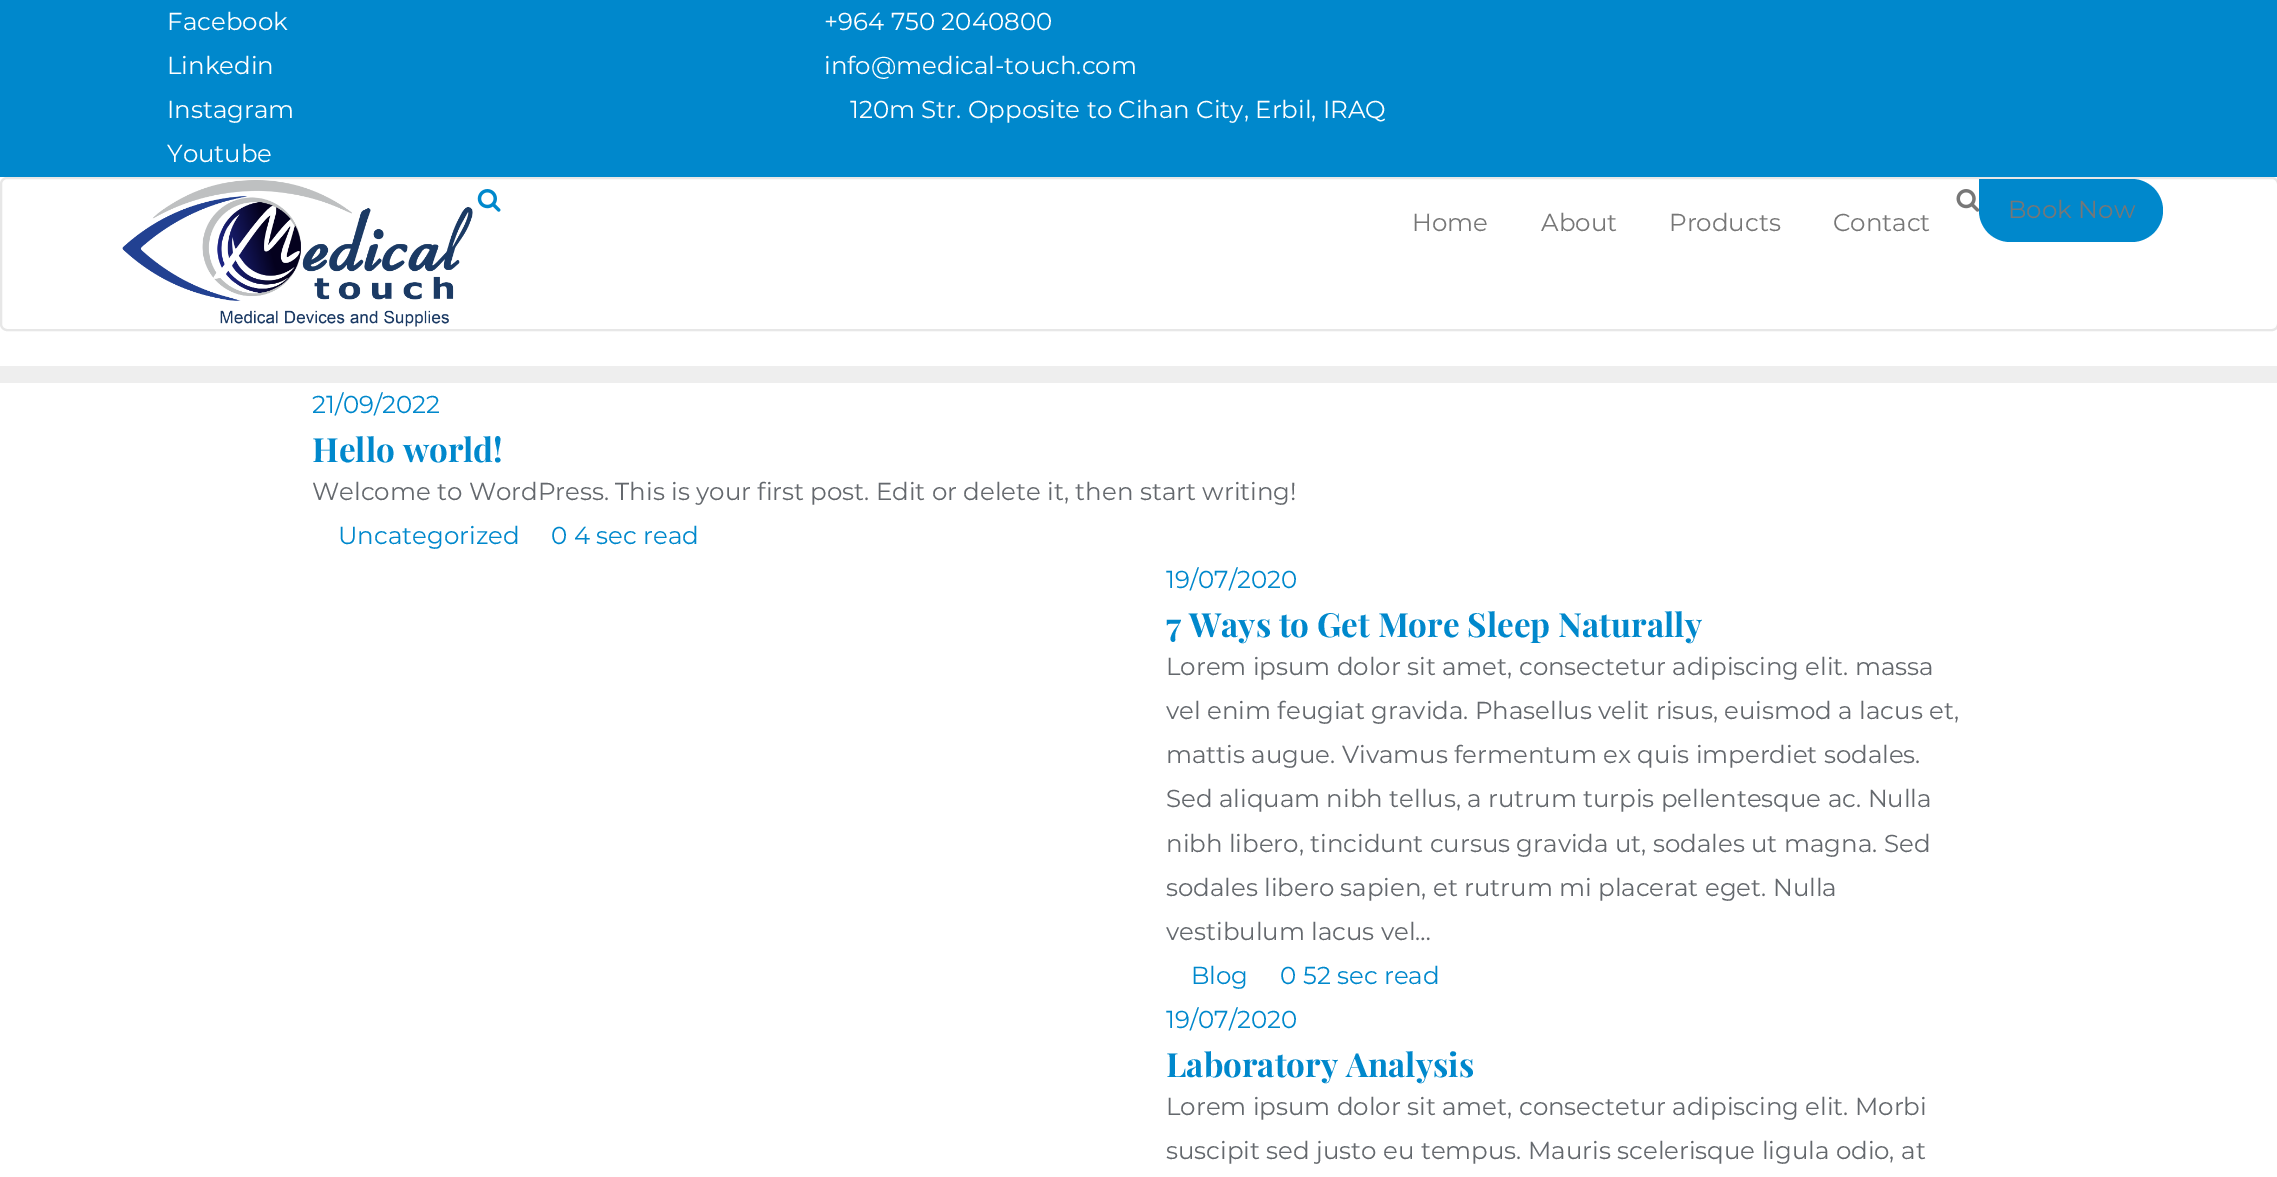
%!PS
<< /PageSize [2277 1177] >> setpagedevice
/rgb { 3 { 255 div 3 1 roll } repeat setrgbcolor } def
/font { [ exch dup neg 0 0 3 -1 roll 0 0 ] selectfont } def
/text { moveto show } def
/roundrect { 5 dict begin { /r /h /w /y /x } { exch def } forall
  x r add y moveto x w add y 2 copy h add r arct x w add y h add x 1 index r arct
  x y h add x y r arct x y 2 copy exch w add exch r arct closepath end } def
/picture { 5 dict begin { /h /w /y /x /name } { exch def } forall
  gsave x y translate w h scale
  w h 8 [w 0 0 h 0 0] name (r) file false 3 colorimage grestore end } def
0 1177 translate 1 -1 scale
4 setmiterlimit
255 255 255 rgb
0 0 2277 1177 rectfill
238 238 238 rgb
0 366 2277 17 rectfill
0 136 204 rgb
0 0 2277 177 rectfill
231 231 231 rgb
2 setlinewidth
1 178 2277 152 6 roundrect stroke
(img_01.rgb) 122 180 351 147 picture
(img_02.rgb) 477 189 24 23 picture
(img_03.rgb) 1956 189 24 23 picture
0 136 204 rgb
1979 179 moveto 152.5 0 rlineto 17.5 0 31.5 14 31.5 31.5 rcurveto 0 17.5 -14 31.5 -31.5 31.5 rcurveto -121 0 rlineto -17.5 0 -31.5 -14 -31.5 -31.5 rcurveto closepath fill
/Montserrat-Regular 24.5 font
255 255 255 rgb
(Facebook) 167 30 text
(Linkedin) 167 74 text
(Instagram) 167 118 text
(Youtube) 167 162 text
(+964 750 2040800) 824 30 text
(info@medical-touch.com) 824 74 text
(120m Str. Opposite to Cihan City, Erbil, IRAQ) 850 118 text
119 119 119 rgb
(Book Now) 2008 218 text
(Home) 1412 231 text
(About) 1541 231 text
(Products) 1669 231 text
(Contact) 1833 231 text
0 136 204 rgb
(21/09/2022) 312 413 text
/PlayfairDisplay-Bold 33.25 font
(Hello world!) 312 462 text
/Montserrat-Regular 24.5 font
100 104 109 rgb
(Welcome to WordPress. This is your first post. Edit or delete it, then start writing!) 312 500 text
0 136 204 rgb
(Uncategorized) 338 544 text
(0 4 sec read) 551 544 text
(19/07/2020) 1166 588 text
/PlayfairDisplay-Bold 33.25 font
(7 Ways to Get More Sleep Naturally) 1166 637 text
/Montserrat-Regular 24.5 font
100 104 109 rgb
(Lorem ipsum dolor sit amet, consectetur adipiscing elit. massa) 1166 675 text
(vel enim feugiat gravida. Phasellus velit risus, euismod a lacus et,) 1166 719 text
(mattis augue. Vivamus fermentum ex quis imperdiet sodales.) 1166 763 text
(Sed aliquam nibh tellus, a rutrum turpis pellentesque ac. Nulla) 1166 807 text
(nibh libero, tincidunt cursus gravida ut, sodales ut magna. Sed) 1166 852 text
(sodales libero sapien, et rutrum mi placerat eget. Nulla) 1166 896 text
(vestibulum lacus vel…) 1166 940 text
0 136 204 rgb
(Blog) 1191 984 text
(0 52 sec read) 1280 984 text
(19/07/2020) 1166 1028 text
/PlayfairDisplay-Bold 33.25 font
(Laboratory Analysis) 1166 1077 text
/Montserrat-Regular 24.5 font
100 104 109 rgb
(Lorem ipsum dolor sit amet, consectetur adipiscing elit. Morbi) 1166 1115 text
(suscipit sed justo eu tempus. Mauris scelerisque ligula odio, at) 1166 1159 text
showpage
